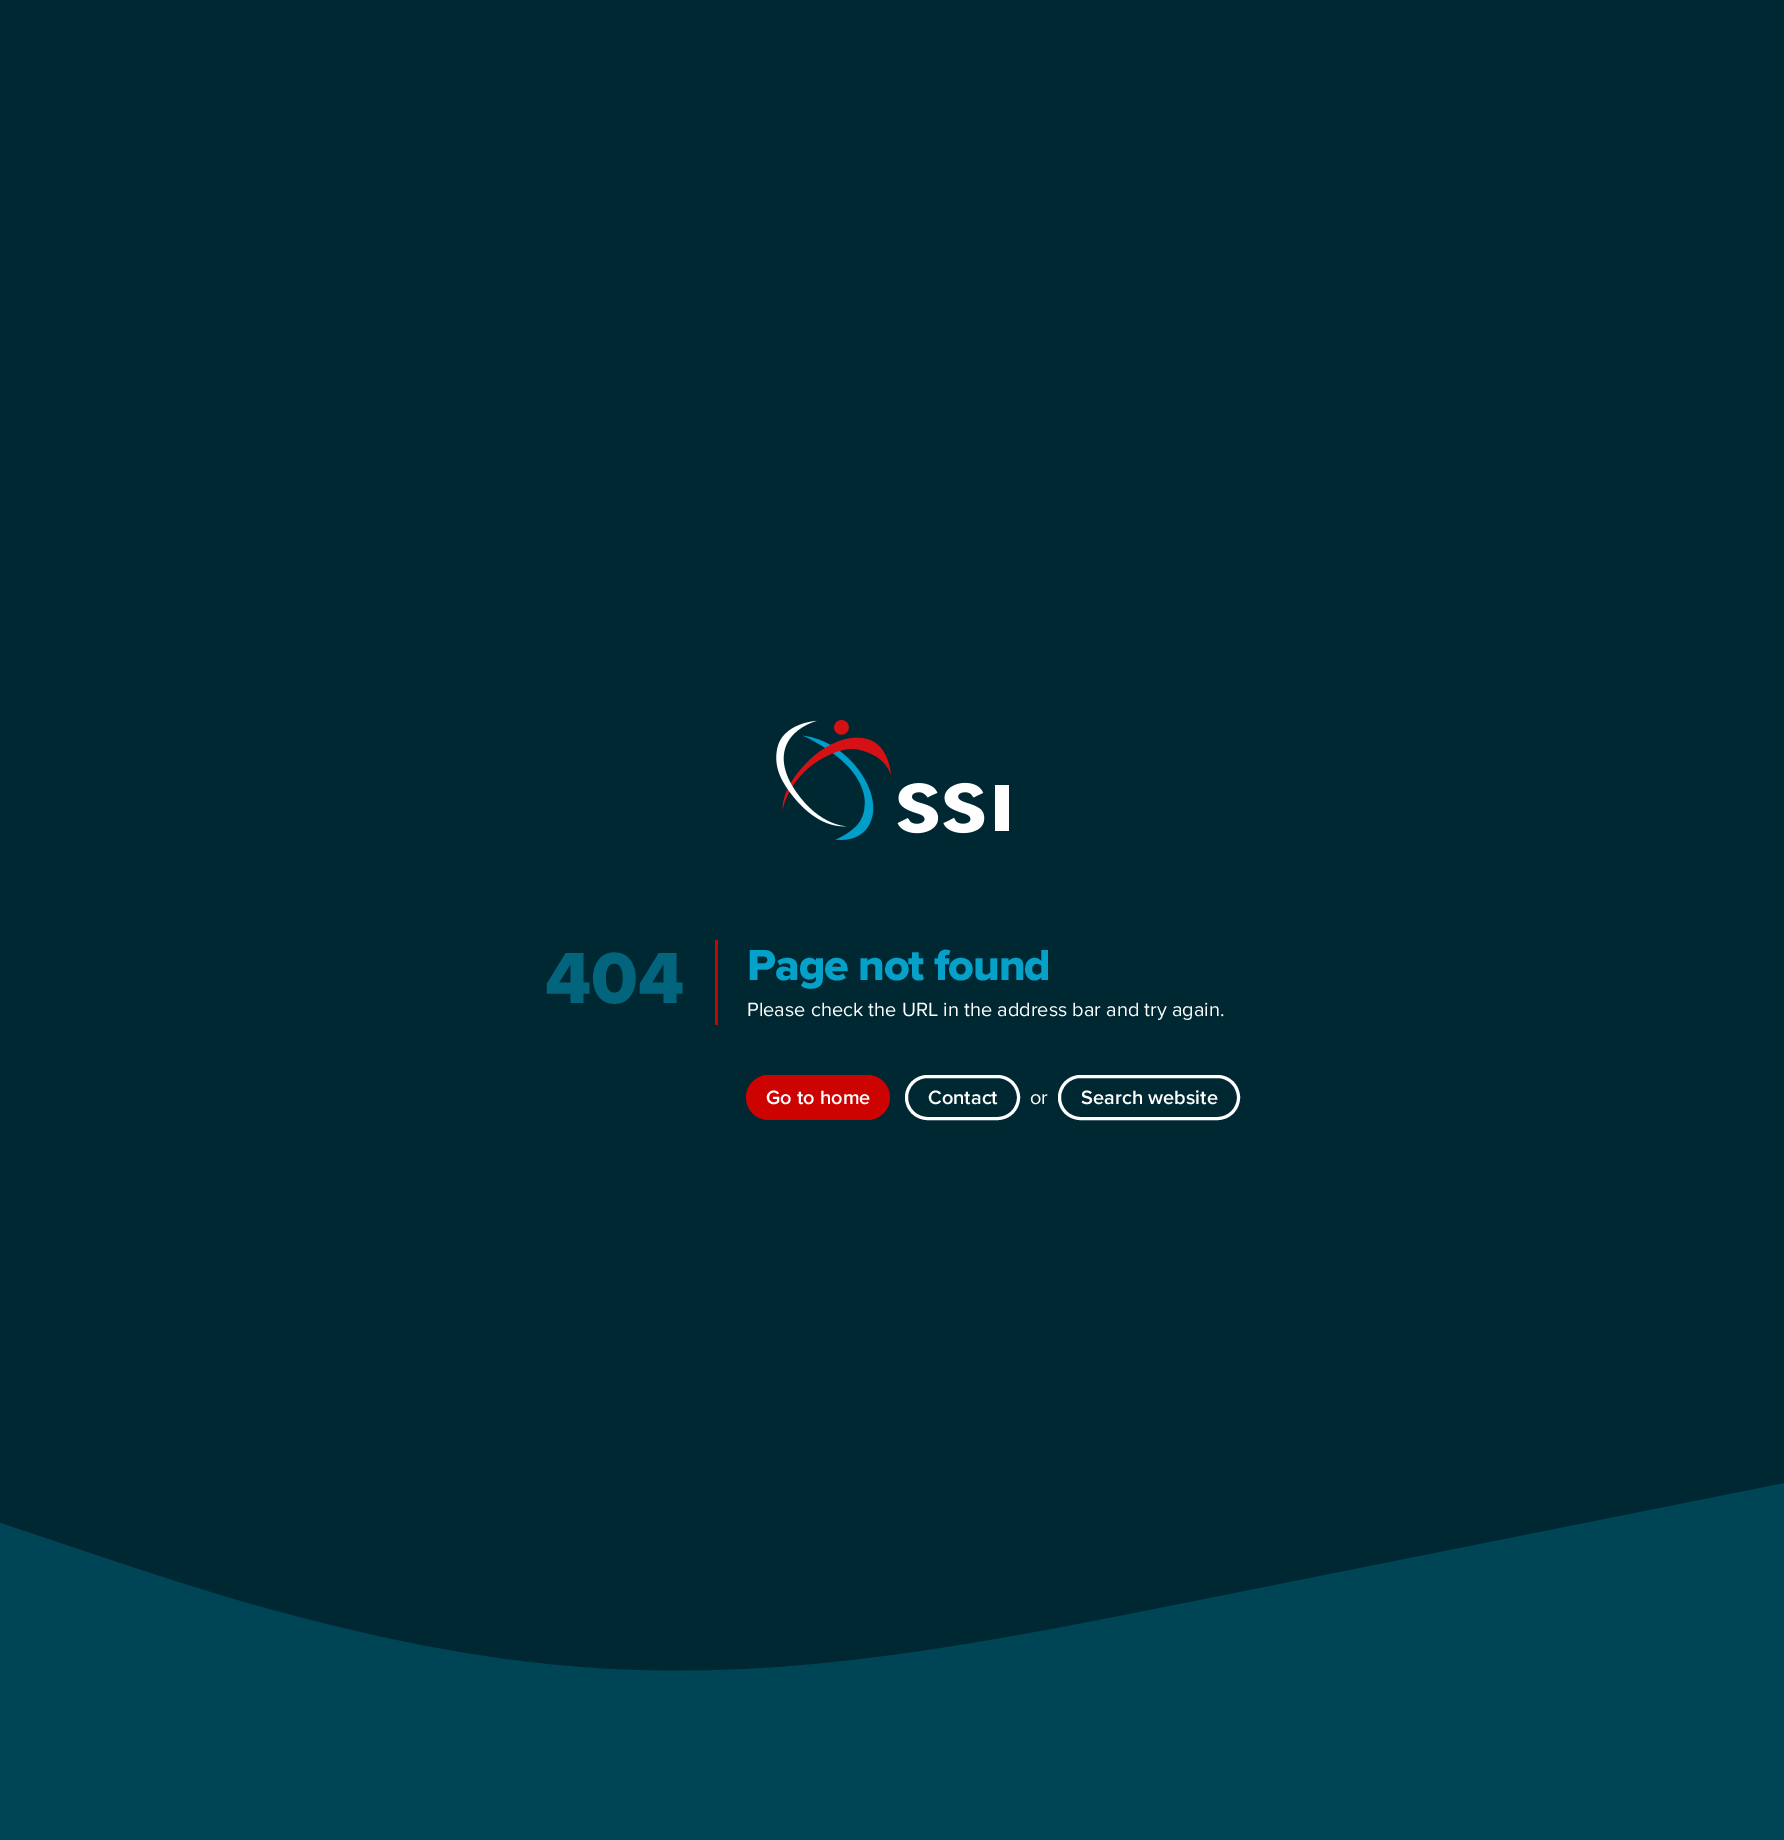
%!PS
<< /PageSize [1784 1840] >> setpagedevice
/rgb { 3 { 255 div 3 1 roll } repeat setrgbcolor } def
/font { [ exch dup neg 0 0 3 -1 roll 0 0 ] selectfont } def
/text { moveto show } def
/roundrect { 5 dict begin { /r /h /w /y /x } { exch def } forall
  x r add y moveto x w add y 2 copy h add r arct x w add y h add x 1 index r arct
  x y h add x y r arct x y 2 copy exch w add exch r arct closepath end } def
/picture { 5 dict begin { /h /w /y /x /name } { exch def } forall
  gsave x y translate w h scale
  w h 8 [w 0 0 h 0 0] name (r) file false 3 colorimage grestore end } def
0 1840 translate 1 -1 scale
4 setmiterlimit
0 40 50 rgb
0 0 1784 1840 rectfill
(img_01.rgb) 776 720 233 120 picture
205 3 2 rgb
715 940 3 85 rectfill
746 1075 144 45 22.5 roundrect fill
255 255 255 rgb
3 setlinewidth
906.5 1076.5 112 42 21 roundrect stroke
1059.5 1076.5 179 42 21 roundrect stroke
0 69 86 rgb
0 1523 moveto 82 27 164 56 247 80 rcurveto 114 32 230 58 348 65 rcurveto 201 14 399 -27 595 -66 rcurveto 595 -119 rlineto 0 357 rlineto -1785 0 rlineto closepath fill
/ProximaNova-ExtraBold 75 font
3 101 125 rgb
(404) 545 1003 text
/ProximaNova-ExtraBold 45 font
5 161 200 rgb
747 980 moveto -1.1 0 (Page not found) ashow
/ProximaNova-Regular 20 font
255 255 255 rgb
(Please check the URL in the address bar and try again.) 747 1016 text
/ProximaNova-SemiBold 20 font
(Go to home) 766 1104 text
(Contact) 928 1104 text
/ProximaNova-Regular 20 font
(or) 1030 1104 text
/ProximaNova-SemiBold 20 font
(Search website) 1081 1104 text
showpage
